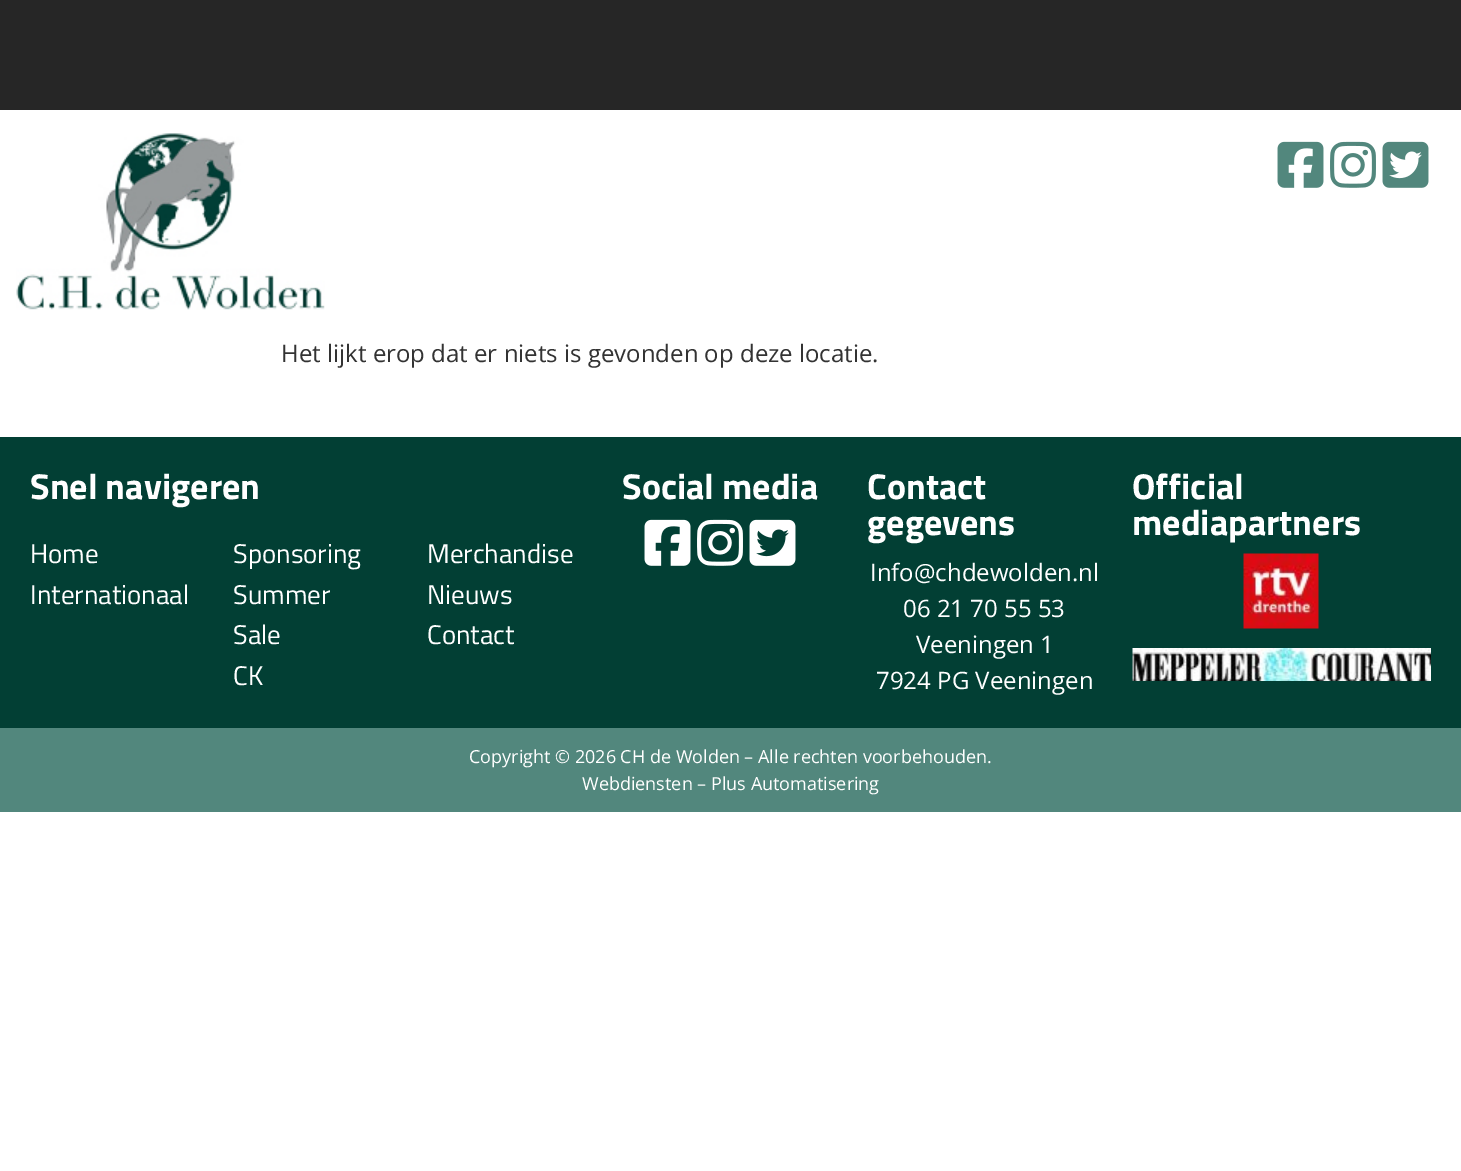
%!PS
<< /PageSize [1461 1171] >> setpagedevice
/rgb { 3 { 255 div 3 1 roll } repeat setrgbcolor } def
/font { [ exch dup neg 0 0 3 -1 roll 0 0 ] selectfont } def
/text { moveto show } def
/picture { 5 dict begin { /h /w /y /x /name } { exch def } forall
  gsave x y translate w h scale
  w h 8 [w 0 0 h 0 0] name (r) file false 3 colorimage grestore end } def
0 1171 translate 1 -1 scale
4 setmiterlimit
255 255 255 rgb
0 0 1461 1171 rectfill
38 38 38 rgb
0 0 1461 110 rectfill
(img_01.rgb) 16 133 309 177 picture
(img_02.rgb) 1277 141 47 47 picture
(img_03.rgb) 1330 141 46 47 picture
(img_04.rgb) 1382 141 47 47 picture
2 63 52 rgb
0 437 1461 291 rectfill
(img_05.rgb) 644 519 47 47 picture
(img_06.rgb) 697 519 46 47 picture
(img_07.rgb) 749 519 47 47 picture
(img_08.rgb) 1243 553 76 76 picture
(img_09.rgb) 1132 648 299 33 picture
82 135 125 rgb
0 728 1461 84 rectfill
/OpenSans-Regular 24 font
51 51 51 rgb
(Het lijkt erop dat er niets is gevonden op deze locatie.) 281 362 text
/TitilliumWeb-Bold 36 font
255 255 255 rgb
(Snel navigeren) 30 499 text
/TitilliumWeb-Regular 27 font
(Home) 30 563 text
(Internationaal) 30 604 text
(Sponsoring) 233 563 text
(Summer) 233 604 text
(Sale) 233 644 text
(CK) 233 685 text
(Merchandise) 427 563 text
(Nieuws) 427 604 text
(Contact) 427 644 text
/TitilliumWeb-Bold 36 font
(Social media) 622 499 text
(Contact) 867 499 text
(gegevens) 867 535 text
/OpenSans-Regular 24 font
(Info@chdewolden.nl) 870 581 text
(06 21 70 55 53) 903 617 text
(Veeningen 1) 916 653 text
(7924 PG Veeningen) 876 689 text
/TitilliumWeb-Bold 36 font
(Official) 1132 499 text
(mediapartners) 1132 535 text
/OpenSans-Regular 18 font
(Copyright © 2026 CH de Wolden – Alle rechten voorbehouden.) 469 763 text
(Webdiensten – Plus Automatisering) 582 790 text
showpage
